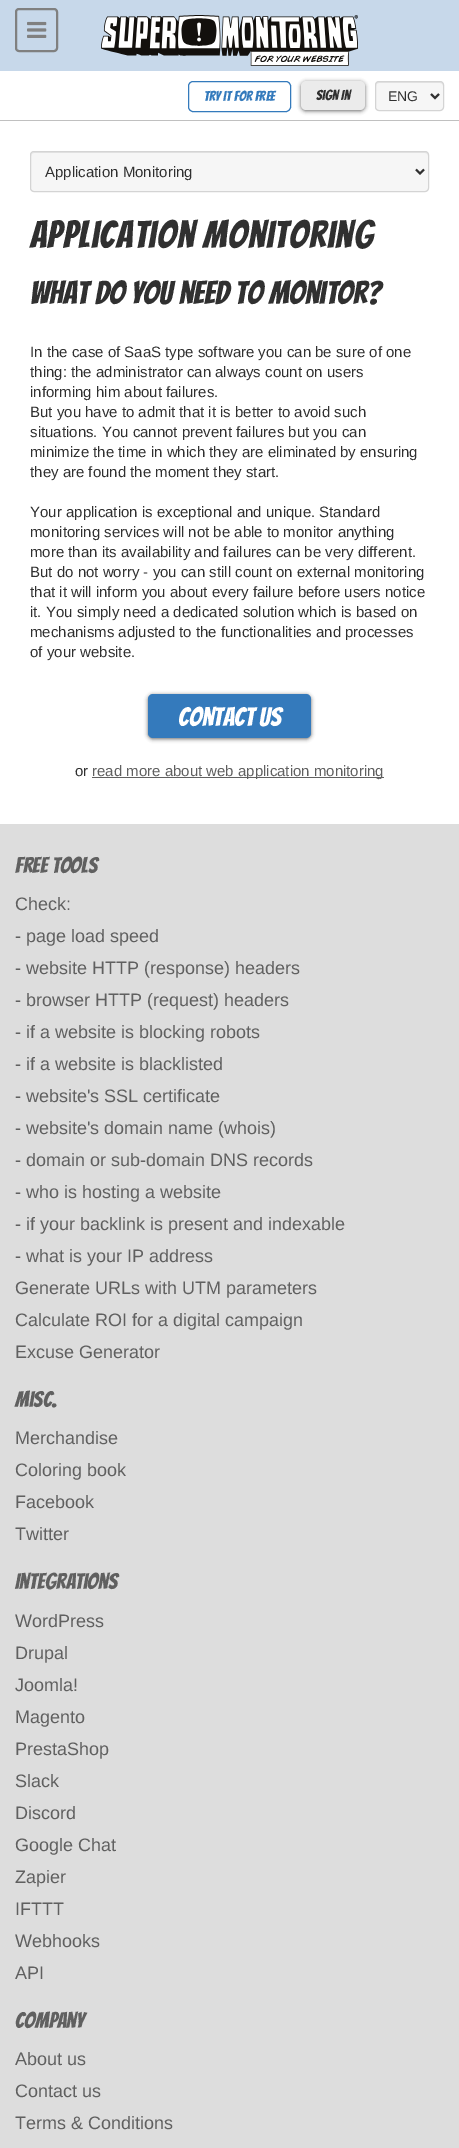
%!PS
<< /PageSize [459 2148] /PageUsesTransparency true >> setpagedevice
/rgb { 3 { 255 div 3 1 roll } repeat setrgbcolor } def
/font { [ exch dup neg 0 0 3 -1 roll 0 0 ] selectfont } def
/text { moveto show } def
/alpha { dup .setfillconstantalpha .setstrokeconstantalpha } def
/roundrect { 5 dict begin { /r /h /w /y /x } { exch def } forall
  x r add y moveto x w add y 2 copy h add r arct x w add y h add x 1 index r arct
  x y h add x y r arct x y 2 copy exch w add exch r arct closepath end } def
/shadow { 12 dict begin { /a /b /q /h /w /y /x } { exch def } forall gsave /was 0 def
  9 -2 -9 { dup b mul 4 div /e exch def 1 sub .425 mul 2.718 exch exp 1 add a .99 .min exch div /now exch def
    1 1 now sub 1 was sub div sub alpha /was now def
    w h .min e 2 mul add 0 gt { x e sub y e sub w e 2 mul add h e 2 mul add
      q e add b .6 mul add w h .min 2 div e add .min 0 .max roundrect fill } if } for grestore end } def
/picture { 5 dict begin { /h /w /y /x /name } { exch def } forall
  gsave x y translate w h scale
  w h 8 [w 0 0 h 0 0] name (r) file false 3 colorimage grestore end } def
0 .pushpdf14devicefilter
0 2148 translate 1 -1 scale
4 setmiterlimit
255 255 255 rgb
0 0 459 2148 rectfill
199 216 234 rgb
0 0 459 71 rectfill
(img_01.rgb) 101 15 257 51 picture
128 128 128 rgb
2 setlinewidth
16 9 41 42 3 roundrect stroke
(img_02.rgb) 27 21 20 17 picture
52 122 188 rgb
1 setlinewidth
188.5 81.5 102 30 4.5 roundrect stroke
0 0 0 rgb
301 82 64 29 5 2 0.6 shadow
235 235 235 rgb
301 81 64 29 5 roundrect fill
246 246 246 rgb
375 81 69 30 4 roundrect fill
228 228 228 rgb
379 83 moveto 61 0 rlineto 2 0 3 1 3 3 rcurveto 0 -7 -9 -4 -13 -4 rcurveto -41 0 rlineto -4 0 -13 -3 -13 4 rcurveto 0 -2 1 -3 3 -3 rcurveto closepath fill
212 212 212 rgb
375.5 81.5 68 29 3.5 roundrect stroke
48 48 48 rgb
2 setlinewidth
431 94 moveto 4 4 rlineto 4 -4 rlineto stroke
192 192 192 rgb
0 120 459 1 rectfill
246 246 246 rgb
30 151 399 41 4 roundrect fill
228 228 228 rgb
34 153 moveto 391 0 rlineto 2 0 3 1 3 3 rcurveto 0 -2 -1 -4 -3 -4 rcurveto -391 0 rlineto -2 1 rlineto -1 3 rlineto 0 -2 1 -3 3 -3 rcurveto closepath fill
212 212 212 rgb
1 setlinewidth
30.5 151.5 398 40 3.5 roundrect stroke
48 48 48 rgb
2 setlinewidth
416 169.5 moveto 4 4 rlineto 4 -4 rlineto stroke
0 0 0 rgb
148 695 163 44 5 2 0.6 shadow
52 122 188 rgb
148 694 163 44 5 roundrect fill
96 96 96 rgb
92 777 292 1 rectfill
221 221 221 rgb
0 824 459 1324 rectfill
/Bangers-Regular 14 font
52 122 188 rgb
(Try it for free) 204 101 text
48 48 48 rgb
(Sign In) 316 100 text
/Arimo-Regular 14 font
(ENG) 388 101 text
/Arimo-Regular 15 font
(Application Monitoring) 45 177 text
/Bangers-Regular 38 font
30 248 moveto 1 0 (Application Monitoring) ashow
/Bangers-Regular 32 font
(What do you need to monitor?) 30 304 text
/Arimo-Regular 15 font
(In the case of SaaS type software you can be sure of one) 30 357 text
(thing: the administrator can always count on users) 30 377 text
(informing him about failures.) 30 397 text
(But you have to admit that it is better to avoid such) 30 417 text
(situations. You cannot prevent failures but you can) 30 437 text
(minimize the time in which they are eliminated by ensuring) 30 457 text
(they are found the moment they start.) 30 477 text
(Your application is exceptional and unique. Standard) 30 517 text
(monitoring services will not be able to monitor anything) 30 537 text
(more than its availability and failures can be very different.) 30 557 text
(But do not worry - you can still count on external monitoring) 30 577 text
(that it will inform you about every failure before users notice) 30 597 text
(it. You simply need a dedicated solution which is based on) 30 617 text
(mechanisms adjusted to the functionalities and processes) 30 637 text
(of your website.) 30 657 text
/Bangers-Regular 26 font
255 255 255 rgb
(Contact us) 178 726 text
/Arimo-Regular 15 font
48 48 48 rgb
(or) 75 776 text
96 96 96 rgb
(read more about web application monitoring) 92 776 text
/Bangers-Regular 22 font
(Free tools) 15 873 text
/Arimo-Regular 18 font
(Check:) 15 910 text
(- page load speed) 15 942 text
(- website HTTP \(response\) headers) 15 974 text
(- browser HTTP \(request\) headers) 15 1006 text
(- if a website is blocking robots) 15 1038 text
(- if a website is blacklisted) 15 1070 text
(- website's SSL certificate) 15 1102 text
(- website's domain name \(whois\)) 15 1134 text
(- domain or sub-domain DNS records) 15 1166 text
(- who is hosting a website) 15 1198 text
(- if your backlink is present and indexable) 15 1230 text
(- what is your IP address) 15 1262 text
(Generate URLs with UTM parameters) 15 1294 text
(Calculate ROI for a digital campaign) 15 1326 text
(Excuse Generator) 15 1358 text
/Bangers-Regular 22 font
(Misc.) 15 1407 text
/Arimo-Regular 18 font
(Merchandise) 15 1444 text
(Coloring book) 15 1476 text
(Facebook) 15 1508 text
(Twitter) 15 1540 text
/Bangers-Regular 22 font
(Integrations) 15 1589 text
/Arimo-Regular 18 font
(WordPress) 15 1627 text
(Drupal) 15 1659 text
(Joomla!) 15 1691 text
(Magento) 15 1723 text
(PrestaShop) 15 1755 text
(Slack) 15 1787 text
(Discord) 15 1819 text
(Google Chat) 15 1851 text
(Zapier) 15 1883 text
(IFTTT) 15 1915 text
(Webhooks) 15 1947 text
(API) 15 1979 text
/Bangers-Regular 22 font
(Company) 15 2028 text
/Arimo-Regular 18 font
(About us) 15 2065 text
(Contact us) 15 2097 text
(Terms & Conditions) 15 2129 text
.poppdf14devicefilter showpage
